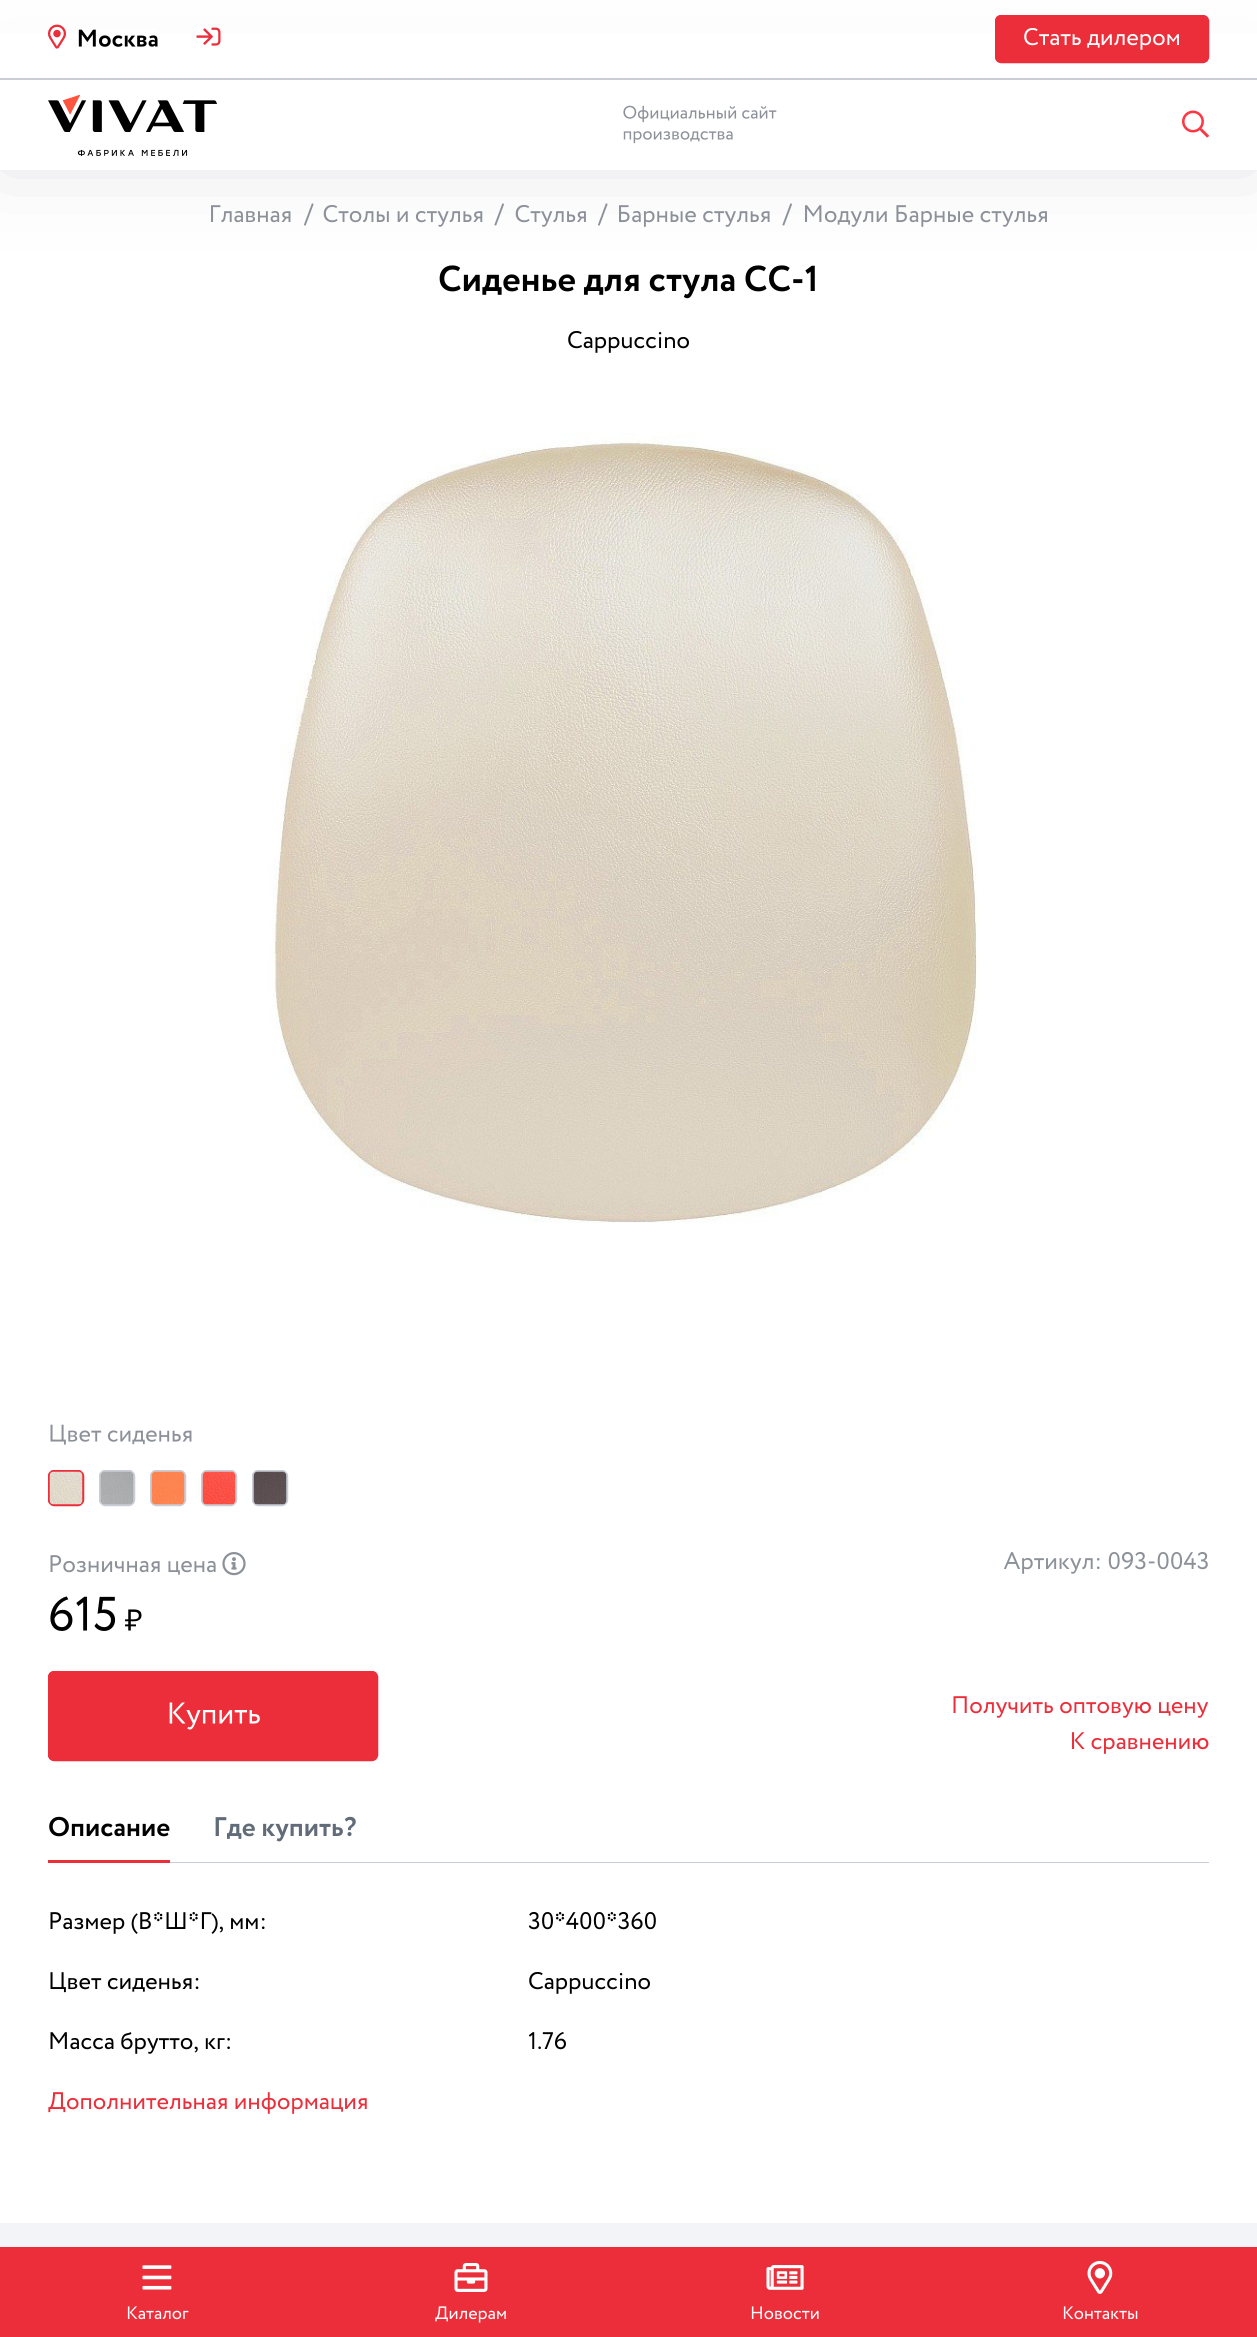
%!PS
<< /PageSize [1257 2337] /PageUsesTransparency true >> setpagedevice
/rgb { 3 { 255 div 3 1 roll } repeat setrgbcolor } def
/alpha { dup .setfillconstantalpha .setstrokeconstantalpha } def
/roundrect { 5 dict begin { /r /h /w /y /x } { exch def } forall
  x r add y moveto x w add y 2 copy h add r arct x w add y h add x 1 index r arct
  x y h add x y r arct x y 2 copy exch w add exch r arct closepath end } def
/shadow { 12 dict begin { /a /b /q /h /w /y /x } { exch def } forall gsave /was 0 def
  9 -2 -9 { dup b mul 4 div /e exch def 1 sub .425 mul 2.718 exch exp 1 add a .99 .min exch div /now exch def
    1 1 now sub 1 was sub div sub alpha /was now def
    w h .min e 2 mul add 0 gt { x e sub y e sub w e 2 mul add h e 2 mul add
      q e add b .6 mul add w h .min 2 div e add .min 0 .max roundrect fill } if } for grestore end } def
/picture { 5 dict begin { /h /w /y /x /name } { exch def } forall
  gsave x y translate w h scale
  w h 8 [w 0 0 h 0 0] name (r) file false 3 colorimage grestore end } def
0 .pushpdf14devicefilter
0 2337 translate 1 -1 scale
4 setmiterlimit
255 255 255 rgb
0 0 1257 2337 rectfill
228 230 235 rgb
0 80 1257 90 0 36 1 shadow
255 255 255 rgb
0 80 1257 90 rectfill
(img_01.rgb) 48 95 169 61 picture
(img_02.rgb) 623 105 154 18 picture
(img_03.rgb) 623 131 110 13 picture
(img_04.rgb) 1182 110 27 28 picture
0 33 1257 45 rectfill
201 206 214 rgb
0 78 1257 2 rectfill
(img_05.rgb) 48 24 18 25 picture
(img_06.rgb) 78 29 80 18 picture
(img_07.rgb) 196 27 25 19 picture
235 46 58 rgb
996 16 212 46 5 roundrect gsave fill grestore
2 setlinewidth
stroke
(img_08.rgb) 1024 28 155 22 picture
(img_09.rgb) 211 205 80 18 picture
140 145 153 rgb
305.5 225.5 moveto -1.5 -0.5 rlineto 8 -21.5 rlineto 1.5 0.5 rlineto closepath fill
(img_10.rgb) 323 205 160 22 picture
496 225.5 moveto -1.5 -0.5 rlineto 8 -21.5 rlineto 1.5 0.5 rlineto closepath fill
(img_11.rgb) 515 205 71 22 picture
599.5 225.5 moveto -1.5 -0.5 rlineto 8 -21.5 rlineto 1.5 0.5 rlineto closepath fill
(img_12.rgb) 619 205 151 22 picture
784 225.5 moveto -1.5 -0.5 rlineto 8 -21.5 rlineto 1.5 0.5 rlineto closepath fill
(img_13.rgb) 805 205 242 22 picture
(img_14.rgb) 439 265 376 34 picture
(img_15.rgb) 568 331 121 22 picture
(img_16.rgb) 269 433 708 790 picture
(img_17.rgb) 50 1424 142 21 picture
235 46 58 rgb
49 1471 34 34 5 roundrect stroke
(img_18.rgb) 49 1471 34 34 picture
201 206 214 rgb
100 1471 34 34 5 roundrect stroke
(img_19.rgb) 100 1471 34 34 picture
151 1471 34 34 5 roundrect stroke
(img_20.rgb) 151 1471 34 34 picture
202 1471 34 34 5 roundrect stroke
(img_21.rgb) 202 1471 34 34 picture
253 1471 34 34 5 roundrect stroke
(img_22.rgb) 253 1471 34 34 picture
(img_23.rgb) 50 1555 166 20 picture
(img_24.rgb) 222 1552 24 24 picture
(img_25.rgb) 50 1596 66 35 picture
(img_26.rgb) 125 1609 17 22 picture
(img_27.rgb) 1004 1552 204 22 picture
235 46 58 rgb
49 1672 328 88 5 roundrect gsave fill grestore
stroke
(img_28.rgb) 169 1702 91 28 picture
(img_29.rgb) 953 1696 256 22 picture
(img_30.rgb) 1072 1732 137 22 picture
(img_31.rgb) 49 1816 121 21 picture
48 1860 122 3 rectfill
(img_32.rgb) 215 1816 141 26 picture
201 206 214 rgb
170 1862 1039 1 rectfill
(img_33.rgb) 50 1912 215 22 picture
(img_34.rgb) 528 1912 128 18 picture
(img_35.rgb) 50 1972 149 21 picture
(img_15.rgb) 529 1972 121 22 picture
(img_36.rgb) 50 2032 180 22 picture
(img_37.rgb) 528 2032 38 18 picture
(img_38.rgb) 48 2092 319 22 picture
242 244 247 rgb
0 2223 1257 24 rectfill
235 46 58 rgb
0 2247 1257 90 rectfill
(img_39.rgb) 142 2265 30 25 picture
(img_40.rgb) 127 2306 62 14 picture
(img_41.rgb) 454 2263 34 29 picture
(img_42.rgb) 435 2306 71 17 picture
(img_43.rgb) 766 2265 38 25 picture
(img_44.rgb) 751 2306 68 14 picture
(img_45.rgb) 1087 2260 26 34 picture
(img_46.rgb) 1063 2306 75 14 picture
.poppdf14devicefilter showpage
